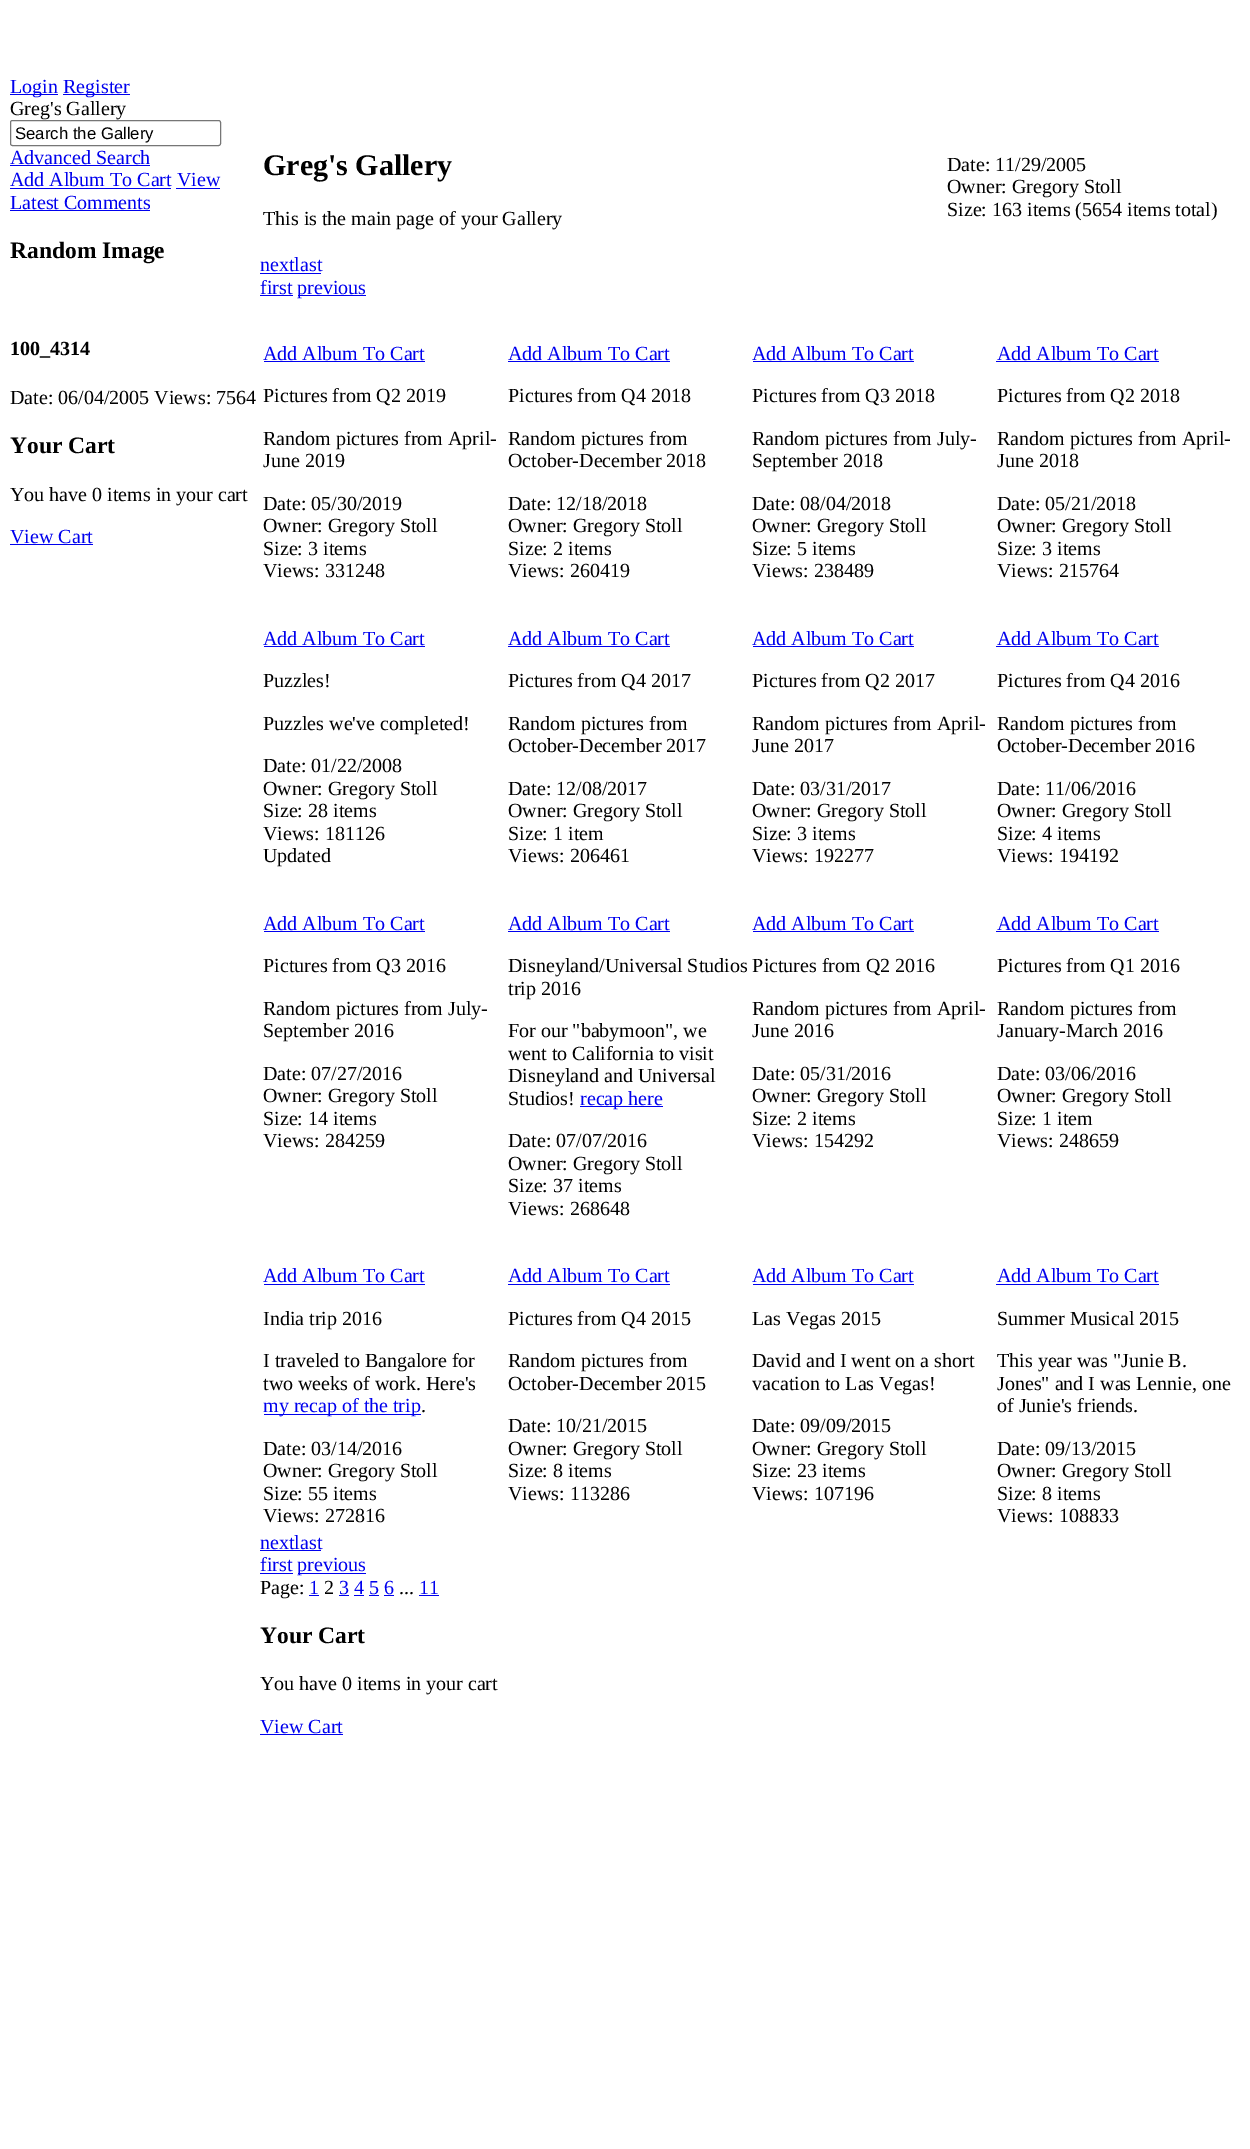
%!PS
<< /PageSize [1250 2149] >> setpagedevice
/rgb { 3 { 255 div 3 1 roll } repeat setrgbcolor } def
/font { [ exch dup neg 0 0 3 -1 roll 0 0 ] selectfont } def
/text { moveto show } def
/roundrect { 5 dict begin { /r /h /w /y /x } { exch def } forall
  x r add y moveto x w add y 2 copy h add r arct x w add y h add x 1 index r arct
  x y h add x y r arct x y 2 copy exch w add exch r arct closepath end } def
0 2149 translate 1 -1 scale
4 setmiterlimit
255 255 255 rgb
0 0 1250 2149 rectfill
0 0 238 rgb
10 94 48 1 rectfill
63 94 67 1 rectfill
118 118 118 rgb
10.5 120.5 210 25 2 roundrect stroke
0 0 238 rgb
10 165 140 1 rectfill
10 188 161 1 rectfill
176 188 44 1 rectfill
10 210 140 1 rectfill
10 544 83 1 rectfill
260 273 61 1 rectfill
260 295 33 1 rectfill
298 295 68 1 rectfill
264 361 161 1 rectfill
508 361 162 1 rectfill
753 361 161 1 rectfill
996 361 163 1 rectfill
264 646 161 1 rectfill
508 646 162 1 rectfill
753 646 161 1 rectfill
996 646 163 1 rectfill
264 931 161 1 rectfill
508 931 162 1 rectfill
580 1106 83 1 rectfill
753 931 161 1 rectfill
996 931 163 1 rectfill
264 1284 161 1 rectfill
264 1414 157 1 rectfill
508 1284 162 1 rectfill
753 1284 161 1 rectfill
996 1284 163 1 rectfill
260 1550 61 1 rectfill
260 1573 33 1 rectfill
298 1573 68 1 rectfill
309 1595 10 1 rectfill
339 1595 10 1 rectfill
419 1595 20 1 rectfill
354 1595 10 1 rectfill
369 1595 10 1 rectfill
384 1595 10 1 rectfill
260 1734 83 1 rectfill
/LiberationSerif-Regular 20 font
(Login) 10 93 text
(Register) 63 93 text
0 0 0 rgb
(Greg's Gallery) 10 115 text
/LiberationSans-Regular 16.75 font
(Search the Gallery) 15 139 text
/LiberationSerif-Regular 20 font
0 0 238 rgb
(Advanced Search) 10 164 text
(Add Album To Cart View) 10 186 text
(Latest Comments) 10 209 text
/LiberationSerif-Bold 23.5 font
0 0 0 rgb
(Random Image) 10 258 text
/LiberationSerif-Bold 20 font
(100_4314) 10 355 text
/LiberationSerif-Regular 20 font
(Date: 06/04/2005 Views: 7564) 10 404 text
/LiberationSerif-Bold 23.5 font
(Your Cart) 10 453 text
/LiberationSerif-Regular 20 font
(You have 0 items in your cart) 10 501 text
0 0 238 rgb
(View Cart) 10 543 text
/LiberationSerif-Bold 30 font
0 0 0 rgb
(Greg's Gallery) 263 175 text
/LiberationSerif-Regular 20 font
(This is the main page of your Gallery) 263 225 text
(Date: 11/29/2005) 947 171 text
(Owner: Gregory Stoll) 947 193 text
(Size: 163 items \(5654 items total\)) 947 216 text
0 0 238 rgb
(nextlast) 260 271 text
(first) 260 294 text
(previous) 297 294 text
(Add Album To Cart) 263 360 text
0 0 0 rgb
(Pictures from Q2 2019) 263 402 text
(Random pictures from April-) 263 445 text
(June 2019) 263 467 text
(Date: 05/30/2019) 263 510 text
(Owner: Gregory Stoll) 263 532 text
(Size: 3 items) 263 555 text
(Views: 331248) 263 577 text
0 0 238 rgb
(Add Album To Cart) 508 360 text
0 0 0 rgb
(Pictures from Q4 2018) 508 402 text
(Random pictures from) 508 445 text
(October-December 2018) 508 467 text
(Date: 12/18/2018) 508 510 text
(Owner: Gregory Stoll) 508 532 text
(Size: 2 items) 508 555 text
(Views: 260419) 508 577 text
0 0 238 rgb
(Add Album To Cart) 752 360 text
0 0 0 rgb
(Pictures from Q3 2018) 752 402 text
(Random pictures from July-) 752 445 text
(September 2018) 752 467 text
(Date: 08/04/2018) 752 510 text
(Owner: Gregory Stoll) 752 532 text
(Size: 5 items) 752 555 text
(Views: 238489) 752 577 text
0 0 238 rgb
(Add Album To Cart) 997 360 text
0 0 0 rgb
(Pictures from Q2 2018) 997 402 text
(Random pictures from April-) 997 445 text
(June 2018) 997 467 text
(Date: 05/21/2018) 997 510 text
(Owner: Gregory Stoll) 997 532 text
(Size: 3 items) 997 555 text
(Views: 215764) 997 577 text
0 0 238 rgb
(Add Album To Cart) 263 645 text
0 0 0 rgb
(Puzzles!) 263 687 text
(Puzzles we've completed!) 263 730 text
(Date: 01/22/2008) 263 772 text
(Owner: Gregory Stoll) 263 795 text
(Size: 28 items) 263 817 text
(Views: 181126) 263 840 text
(Updated) 263 862 text
0 0 238 rgb
(Add Album To Cart) 508 645 text
0 0 0 rgb
(Pictures from Q4 2017) 508 687 text
(Random pictures from) 508 730 text
(October-December 2017) 508 752 text
(Date: 12/08/2017) 508 795 text
(Owner: Gregory Stoll) 508 817 text
(Size: 1 item) 508 840 text
(Views: 206461) 508 862 text
0 0 238 rgb
(Add Album To Cart) 752 645 text
0 0 0 rgb
(Pictures from Q2 2017) 752 687 text
(Random pictures from April-) 752 730 text
(June 2017) 752 752 text
(Date: 03/31/2017) 752 795 text
(Owner: Gregory Stoll) 752 817 text
(Size: 3 items) 752 840 text
(Views: 192277) 752 862 text
0 0 238 rgb
(Add Album To Cart) 997 645 text
0 0 0 rgb
(Pictures from Q4 2016) 997 687 text
(Random pictures from) 997 730 text
(October-December 2016) 997 752 text
(Date: 11/06/2016) 997 795 text
(Owner: Gregory Stoll) 997 817 text
(Size: 4 items) 997 840 text
(Views: 194192) 997 862 text
0 0 238 rgb
(Add Album To Cart) 263 930 text
0 0 0 rgb
(Pictures from Q3 2016) 263 972 text
(Random pictures from July-) 263 1015 text
(September 2016) 263 1037 text
(Date: 07/27/2016) 263 1080 text
(Owner: Gregory Stoll) 263 1102 text
(Size: 14 items) 263 1125 text
(Views: 284259) 263 1147 text
0 0 238 rgb
(Add Album To Cart) 508 930 text
0 0 0 rgb
(Disneyland/Universal Studios Pictures from Q2 2016) 508 972 text
(trip 2016) 508 995 text
(For our "babymoon", we) 508 1037 text
(went to California to visit) 508 1060 text
(Disneyland and Universal) 508 1082 text
(Studios!) 508 1105 text
0 0 238 rgb
(recap here) 580 1105 text
0 0 0 rgb
(Date: 07/07/2016) 508 1147 text
(Owner: Gregory Stoll) 508 1170 text
(Size: 37 items) 508 1192 text
(Views: 268648) 508 1215 text
0 0 238 rgb
(Add Album To Cart) 752 930 text
0 0 0 rgb
(Random pictures from April-) 752 1015 text
(June 2016) 752 1037 text
(Date: 05/31/2016) 752 1080 text
(Owner: Gregory Stoll) 752 1102 text
(Size: 2 items) 752 1125 text
(Views: 154292) 752 1147 text
0 0 238 rgb
(Add Album To Cart) 997 930 text
0 0 0 rgb
(Pictures from Q1 2016) 997 972 text
(Random pictures from) 997 1015 text
(January-March 2016) 997 1037 text
(Date: 03/06/2016) 997 1080 text
(Owner: Gregory Stoll) 997 1102 text
(Size: 1 item) 997 1125 text
(Views: 248659) 997 1147 text
0 0 238 rgb
(Add Album To Cart) 263 1282 text
0 0 0 rgb
(India trip 2016) 263 1325 text
(I traveled to Bangalore for) 263 1367 text
(two weeks of work. Here's) 263 1390 text
0 0 238 rgb
(my recap of the trip) 263 1412 text
0 0 0 rgb
(.) 421 1412 text
(Date: 03/14/2016) 263 1455 text
(Owner: Gregory Stoll) 263 1477 text
(Size: 55 items) 263 1500 text
(Views: 272816) 263 1522 text
0 0 238 rgb
(Add Album To Cart) 508 1282 text
0 0 0 rgb
(Pictures from Q4 2015) 508 1325 text
(Random pictures from) 508 1367 text
(October-December 2015) 508 1390 text
(Date: 10/21/2015) 508 1432 text
(Owner: Gregory Stoll) 508 1455 text
(Size: 8 items) 508 1477 text
(Views: 113286) 508 1500 text
0 0 238 rgb
(Add Album To Cart) 752 1282 text
0 0 0 rgb
(Las Vegas 2015) 752 1325 text
(David and I went on a short) 752 1367 text
(vacation to Las Vegas!) 752 1390 text
(Date: 09/09/2015) 752 1432 text
(Owner: Gregory Stoll) 752 1455 text
(Size: 23 items) 752 1477 text
(Views: 107196) 752 1500 text
0 0 238 rgb
(Add Album To Cart) 997 1282 text
0 0 0 rgb
(Summer Musical 2015) 997 1325 text
(This year was "Junie B.) 997 1367 text
(Jones" and I was Lennie, one) 997 1390 text
(of Junie's friends.) 997 1412 text
(Date: 09/13/2015) 997 1455 text
(Owner: Gregory Stoll) 997 1477 text
(Size: 8 items) 997 1500 text
(Views: 108833) 997 1522 text
0 0 238 rgb
(nextlast) 260 1549 text
(first) 260 1571 text
(previous) 297 1571 text
0 0 0 rgb
(Page:) 260 1594 text
0 0 238 rgb
(1) 309 1594 text
0 0 0 rgb
(2) 324 1594 text
0 0 238 rgb
(3 4 5 6) 339 1594 text
0 0 0 rgb
(...) 399 1594 text
0 0 238 rgb
(11) 419 1594 text
/LiberationSerif-Bold 23.5 font
0 0 0 rgb
(Your Cart) 260 1643 text
/LiberationSerif-Regular 20 font
(You have 0 items in your cart) 260 1690 text
0 0 238 rgb
(View Cart) 260 1733 text
showpage
